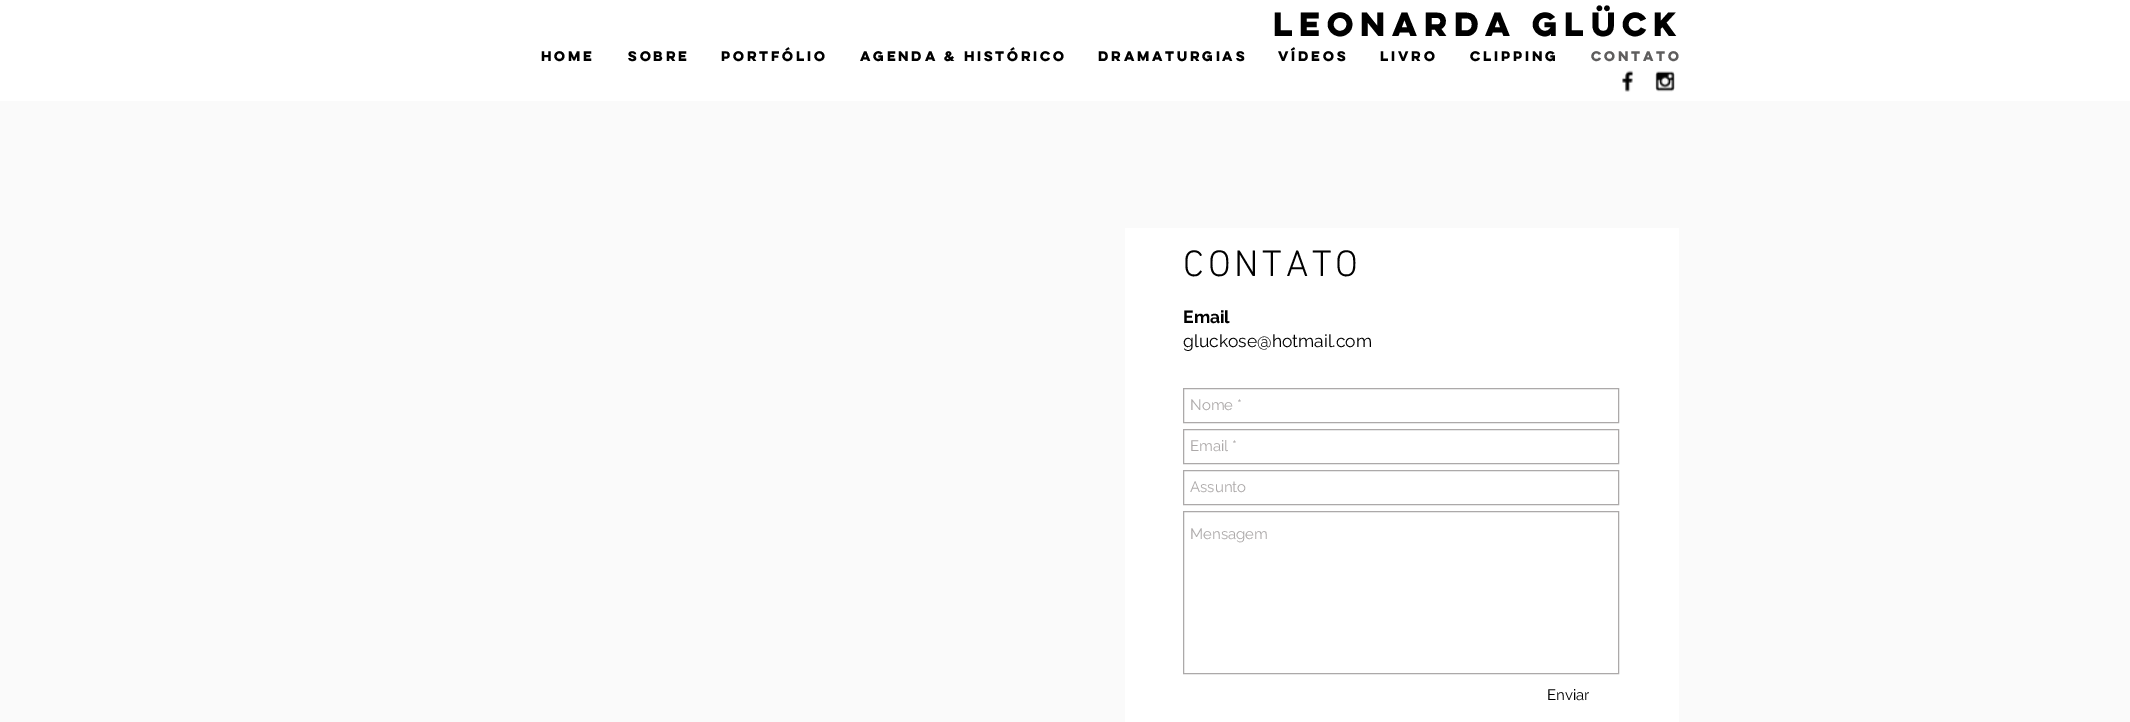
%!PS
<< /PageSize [2130 722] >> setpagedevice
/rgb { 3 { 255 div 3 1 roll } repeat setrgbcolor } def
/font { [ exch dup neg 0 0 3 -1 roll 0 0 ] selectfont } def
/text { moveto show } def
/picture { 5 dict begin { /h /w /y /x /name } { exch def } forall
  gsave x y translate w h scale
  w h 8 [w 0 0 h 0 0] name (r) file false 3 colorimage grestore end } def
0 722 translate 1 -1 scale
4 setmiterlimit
255 255 255 rgb
0 0 2130 722 rectfill
(img_01.rgb) 1622 70 12 22 picture
(img_02.rgb) 1655 71 20 21 picture
250 250 250 rgb
0 101 2130 621 rectfill
255 255 255 rgb
1125 228 554 494 rectfill
172 169 169 rgb
1183.5 388.5 435 34 rectstroke
1183.5 429.5 435 34 rectstroke
1183.5 470.5 435 34 rectstroke
1183.5 511.5 435 162 rectstroke
/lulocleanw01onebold-Bold 30 font
0 0 0 rgb
(leonarda glück) 1273 36 text
/lulocleanw01onebold-Bold 12.5 font
(HOME) 541 61 text
(Sobre) 628 61 text
(Portfólio) 721 61 text
(AGENDA & HISTÓRICO) 860 61 text
(Dramaturgias) 1098 61 text
(VÍDEOS) 1278 61 text
(Livro) 1380 61 text
(Clipping) 1470 61 text
94 93 93 rgb
(Contato) 1591 61 text
/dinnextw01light-Light 37.5 font
0 0 0 rgb
1183 276 moveto 3.75 0 (CONTATO) ashow
/Raleway-Bold 17.5 font
(Email) 1183 323 text
/Raleway-Regular 17.5 font
(gluckose@hotmail.com) 1183 347 text
/Raleway-Regular 15 font
172 169 169 rgb
(Nome *) 1190 410 text
(Email *) 1190 451 text
(Assunto) 1190 492 text
(Mensagem) 1190 539 text
0 0 0 rgb
(Enviar) 1547 700 text
showpage
